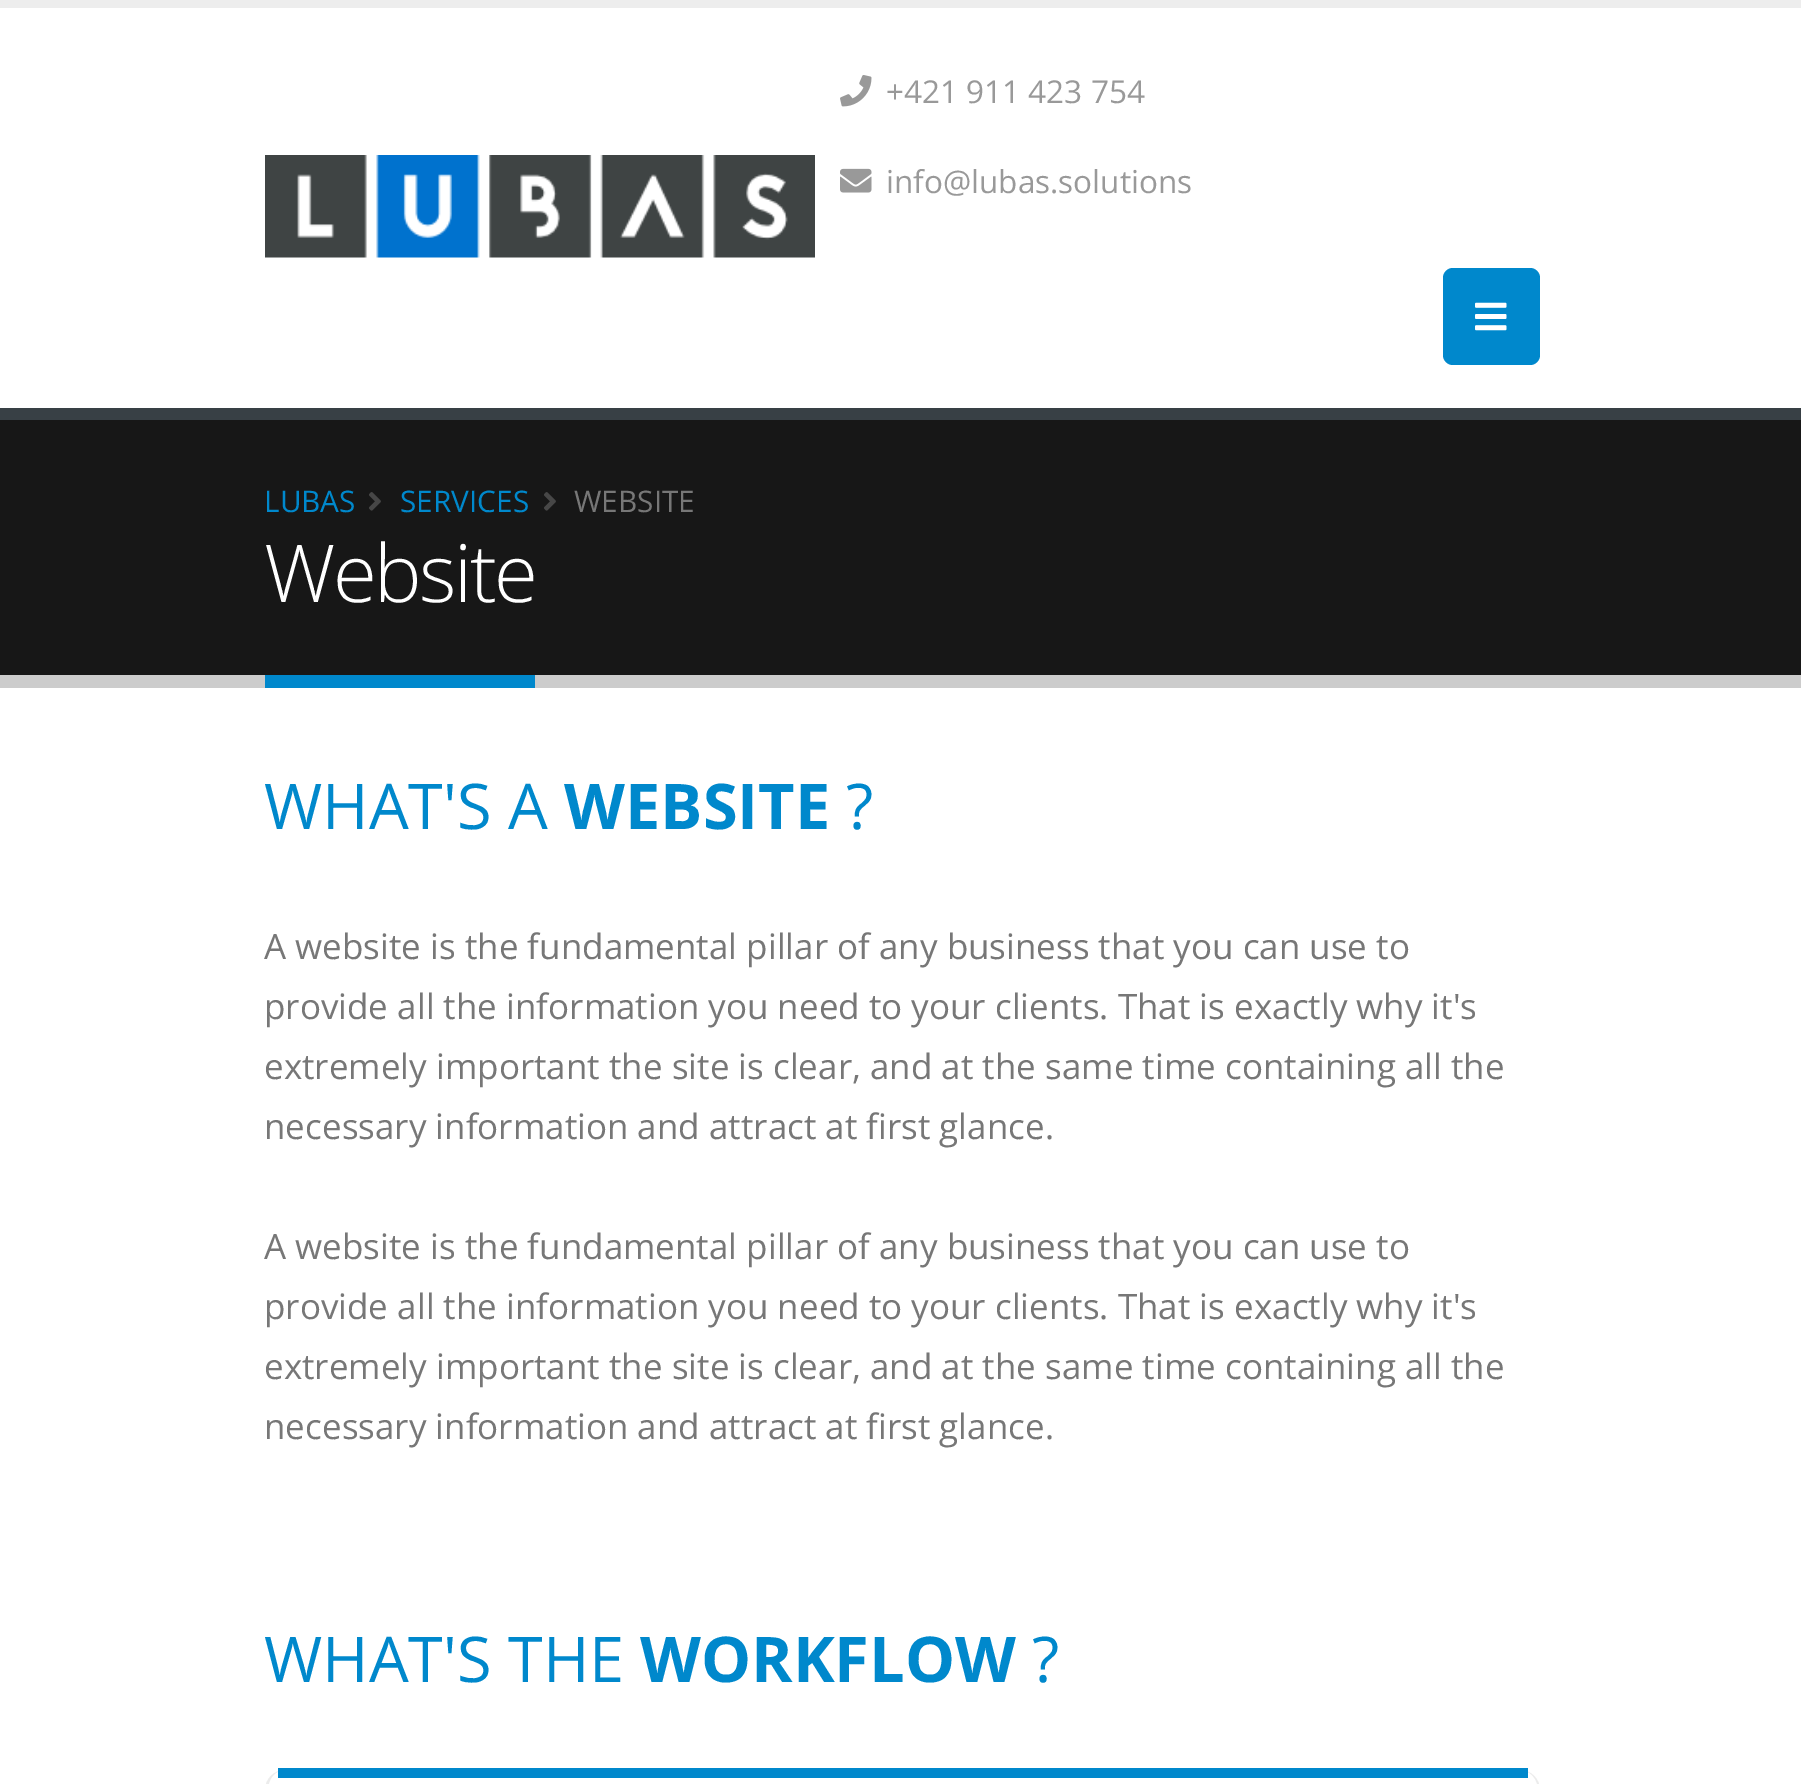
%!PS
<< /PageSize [1801 1784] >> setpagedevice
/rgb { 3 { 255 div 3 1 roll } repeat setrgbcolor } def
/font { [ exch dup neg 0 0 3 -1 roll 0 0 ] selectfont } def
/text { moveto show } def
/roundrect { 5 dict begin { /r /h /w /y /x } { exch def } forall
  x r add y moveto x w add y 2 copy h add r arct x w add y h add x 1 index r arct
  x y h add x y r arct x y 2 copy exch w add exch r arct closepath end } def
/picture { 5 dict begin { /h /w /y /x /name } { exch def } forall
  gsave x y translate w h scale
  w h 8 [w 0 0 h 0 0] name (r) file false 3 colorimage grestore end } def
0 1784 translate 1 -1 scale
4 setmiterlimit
255 255 255 rgb
0 0 1801 1784 rectfill
237 237 237 rgb
0 0 1801 8 rectfill
(img_01.rgb) 840 75 32 32 picture
(img_02.rgb) 840 168 32 25 picture
0 136 204 rgb
1443 268 97 97 10 roundrect fill
(img_03.rgb) 1475 302 32 29 picture
(img_04.rgb) 265 155 550 103 picture
23 23 23 rgb
0 420 1801 255 rectfill
56 64 69 rgb
0 408 1801 12 rectfill
204 204 204 rgb
0 675 1801 13 rectfill
(img_05.rgb) 369 492 12 19 picture
(img_05.rgb) 544 492 12 19 picture
0 136 204 rgb
265 675 270 13 rectfill
236 236 236 rgb
1540 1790 moveto 0 -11 -9 -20 -20 -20 rcurveto 10 0 18 9 18 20 rcurveto 0 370 rlineto 0 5 -2 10 -5 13 rcurveto 1 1 rlineto 4 -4 6 -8 6 -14 rcurveto closepath fill
285 1770 moveto -11 0 -20 9 -20 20 rcurveto 0 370 rlineto 0 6 2 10 6 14 rcurveto 2 -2 rlineto -3 -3 -5 -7 -5 -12 rcurveto 0 -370 rlineto 0 -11 7 -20 17 -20 rcurveto closepath fill
0 136 204 rgb
278 1768 1250 10 rectfill
/OpenSans-Regular 31.5 font
153 153 153 rgb
(+421 911 423 754) 886 103 text
(info@lubas.solutions) 886 193 text
/OpenSans-Regular 29.75 font
0 136 204 rgb
(LUBAS) 264 512 text
(SERVICES) 400 512 text
119 119 119 rgb
(WEBSITE) 574 512 text
/OpenSans-Light 80 font
255 255 255 rgb
264 602 moveto -2.5 0 (Website) ashow
/OpenSans-Regular 63 font
0 136 204 rgb
(WHAT'S A) 264 829 text
/OpenSans-Bold 63 font
(WEBSITE) 564 829 text
/OpenSans-Regular 63 font
(?) 846 829 text
/OpenSans-Regular 35 font
119 119 119 rgb
(A website is the fundamental pillar of any business that you can use to) 264 959 text
(provide all the information you need to your clients. That is exactly why it's) 264 1019 text
(extremely important the site is clear, and at the same time containing all the) 264 1079 text
(necessary information and attract at first glance.) 264 1139 text
(A website is the fundamental pillar of any business that you can use to) 264 1259 text
(provide all the information you need to your clients. That is exactly why it's) 264 1319 text
(extremely important the site is clear, and at the same time containing all the) 264 1379 text
(necessary information and attract at first glance.) 264 1439 text
/OpenSans-Regular 63 font
0 136 204 rgb
(WHAT'S THE) 264 1682 text
/OpenSans-Bold 63 font
(WORKFLOW) 640 1682 text
/OpenSans-Regular 63 font
(?) 1032 1682 text
showpage
